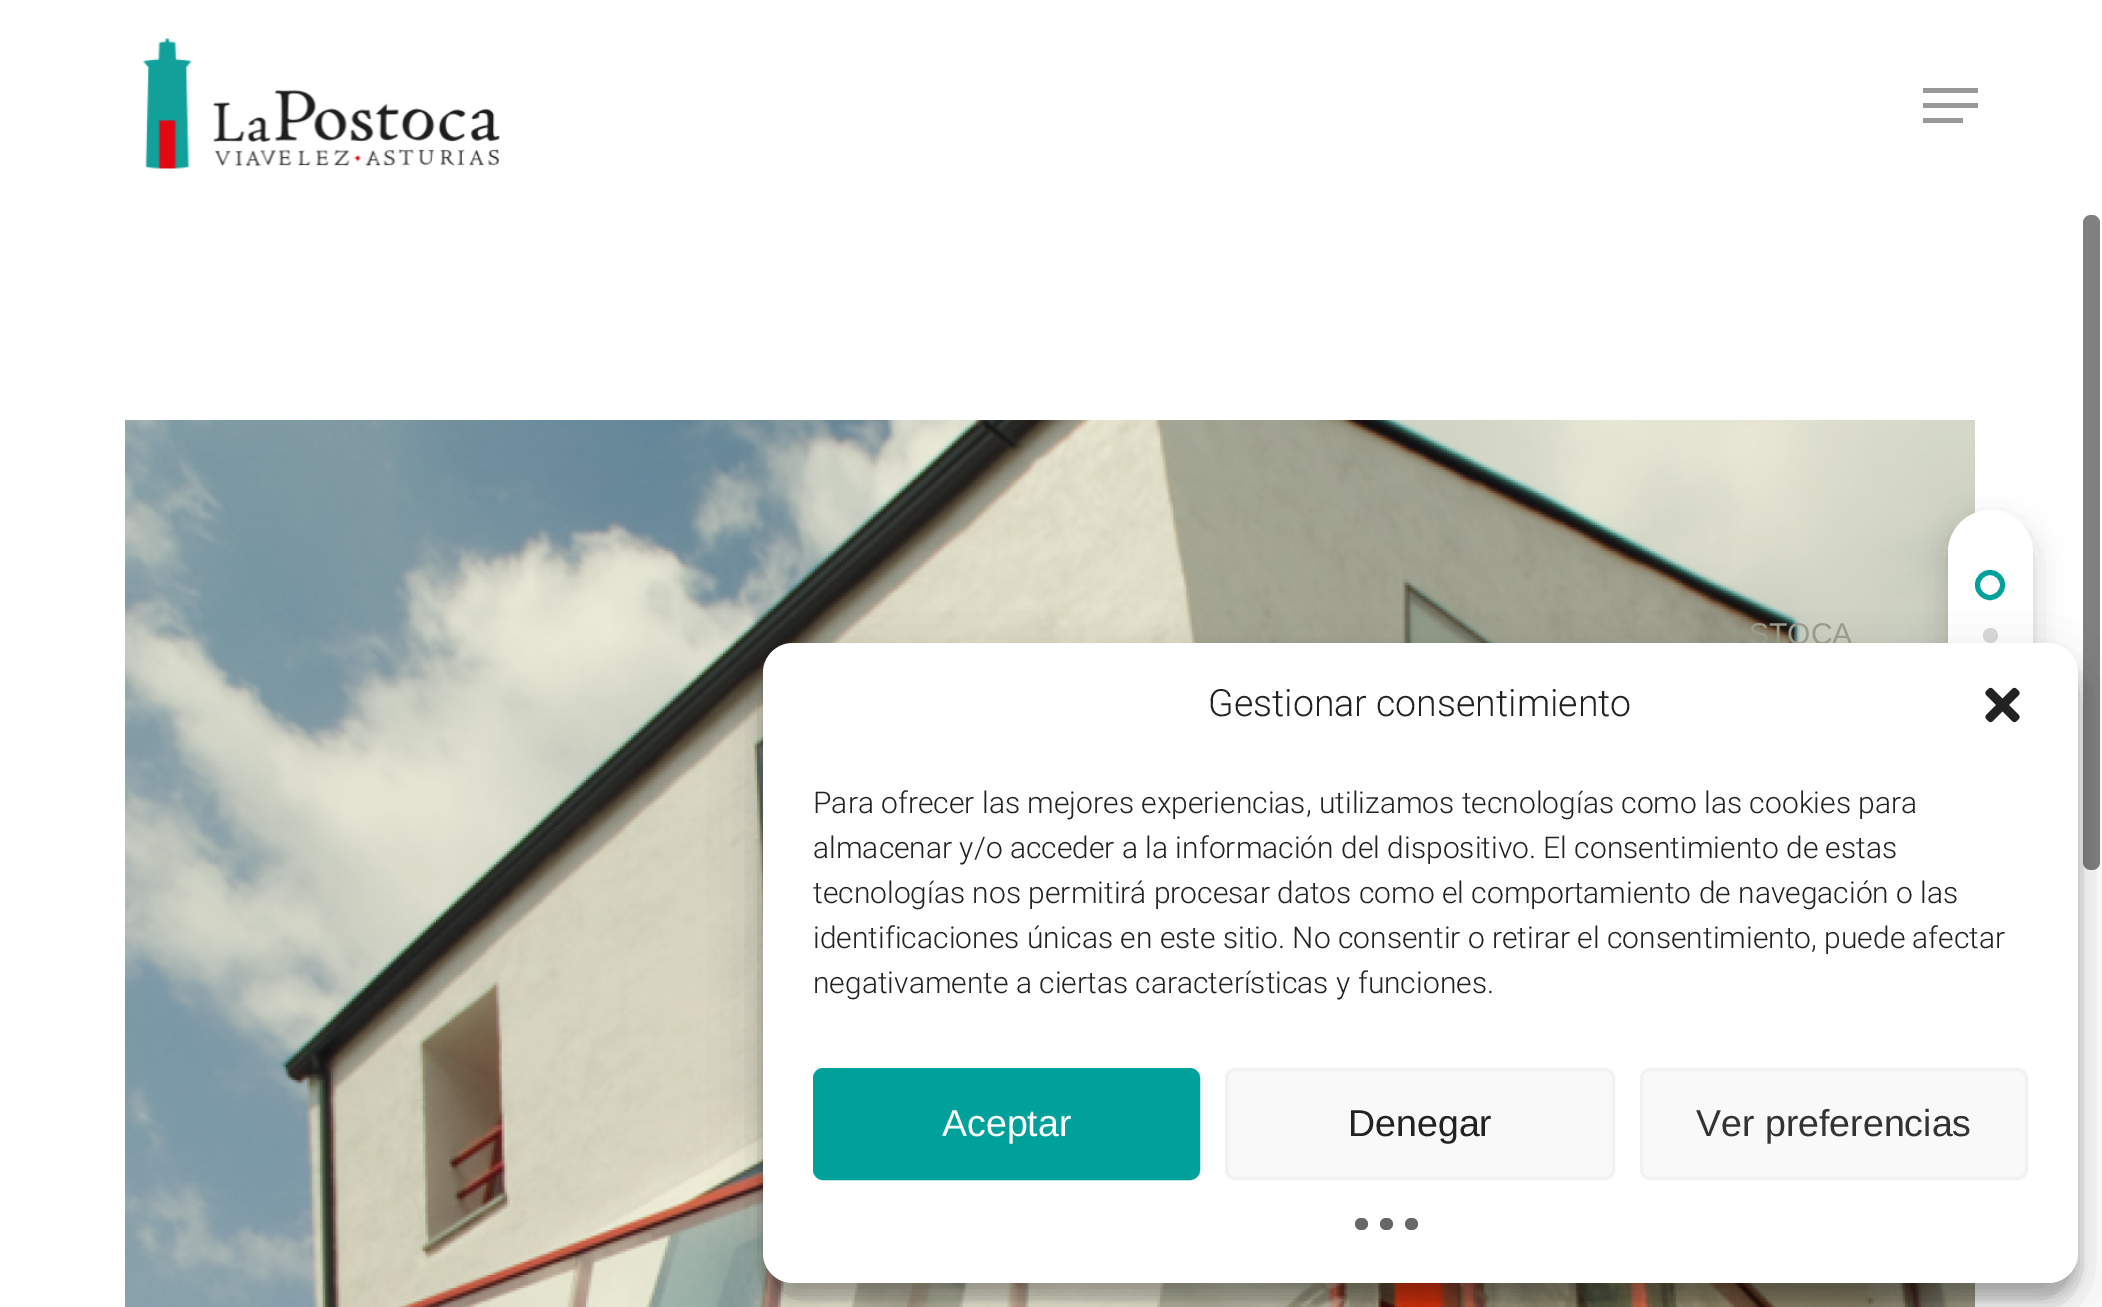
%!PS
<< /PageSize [2102 1307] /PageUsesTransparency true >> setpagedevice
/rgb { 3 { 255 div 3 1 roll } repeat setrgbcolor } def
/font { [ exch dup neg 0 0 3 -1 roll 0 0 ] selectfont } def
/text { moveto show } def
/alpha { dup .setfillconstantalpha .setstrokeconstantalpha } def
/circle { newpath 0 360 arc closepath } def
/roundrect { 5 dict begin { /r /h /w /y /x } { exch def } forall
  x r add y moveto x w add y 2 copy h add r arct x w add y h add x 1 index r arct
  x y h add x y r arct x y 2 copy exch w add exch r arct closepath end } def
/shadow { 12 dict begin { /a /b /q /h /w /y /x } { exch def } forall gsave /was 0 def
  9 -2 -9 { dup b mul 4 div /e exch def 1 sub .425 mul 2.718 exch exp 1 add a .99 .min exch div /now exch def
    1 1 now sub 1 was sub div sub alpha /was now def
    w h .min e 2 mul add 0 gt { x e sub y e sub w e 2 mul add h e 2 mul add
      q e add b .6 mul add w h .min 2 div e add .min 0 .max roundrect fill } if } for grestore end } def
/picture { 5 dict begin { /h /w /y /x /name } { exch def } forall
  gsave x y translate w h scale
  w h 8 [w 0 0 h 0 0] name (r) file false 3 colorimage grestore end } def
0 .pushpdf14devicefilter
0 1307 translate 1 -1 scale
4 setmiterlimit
255 255 255 rgb
0 0 2102 1307 rectfill
(img_01.rgb) 143 38 358 131 picture
153 153 153 rgb
1923 88 55 5 rectfill
1923 118 40 5 rectfill
1923 103 55 5 rectfill
(img_02.rgb) 125 420 1850 887 picture
128 128 128 rgb
2083 215 17 655 8 roundrect fill
43 43 49 rgb
1948 528 85 600 42.5 17.5 0.13 shadow
1948 520 85 600 42.5 11 0.1 shadow
255 255 255 rgb
1948 510 85 600 42.5 roundrect fill
0 161 154 rgb
5 setlinewidth
1990 585 12.5 circle stroke
217 217 217 rgb
1990.5 635.5 7.5 circle fill
0 0 0 rgb
763 658 1315 640 30 7.5 0.23 shadow
763 668 1315 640 30 25 0.19 shadow
/LiberationSans-Regular 30 font
155 155 139 rgb
(STOCA) 1749 644 text
255 255 255 rgb
763 643 1315 640 30 roundrect fill
/Roboto-Light 37.5 font
34 34 34 rgb
(Gestionar consentimiento) 1208 716 text
(img_03.rgb) 1985 687 35 36 picture
/Roboto-Light 30 font
(Para ofrecer las mejores experiencias, utilizamos tecnologías como las cookies para) 813 813 text
(almacenar y/o acceder a la información del dispositivo. El consentimiento de estas) 813 858 text
(tecnologías nos permitirá procesar datos como el comportamiento de navegación o las) 813 903 text
(identificaciones únicas en este sitio. No consentir o retirar el consentimiento, puede afectar) 813 948 text
(negativamente a ciertas características y funciones.) 813 993 text
0 161 154 rgb
814.5 1069.5 384 109 8.5 roundrect gsave fill grestore
3 setlinewidth
stroke
/LiberationSans-Regular 37.5 font
255 255 255 rgb
(Aceptar) 942 1136 text
249 249 249 rgb
1226.5 1069.5 387 109 8.5 roundrect gsave fill grestore
242 242 242 rgb
stroke
34 34 34 rgb
(Denegar) 1348 1136 text
249 249 249 rgb
1641.5 1069.5 385 109 8.5 roundrect gsave fill grestore
242 242 242 rgb
stroke
51 51 51 rgb
(Ver preferencias) 1696 1136 text
103 103 103 rgb
1355 1218 13 12 6 roundrect fill
1380 1218 13 12 6 roundrect fill
1405 1218 13 12 6 roundrect fill
.poppdf14devicefilter showpage
